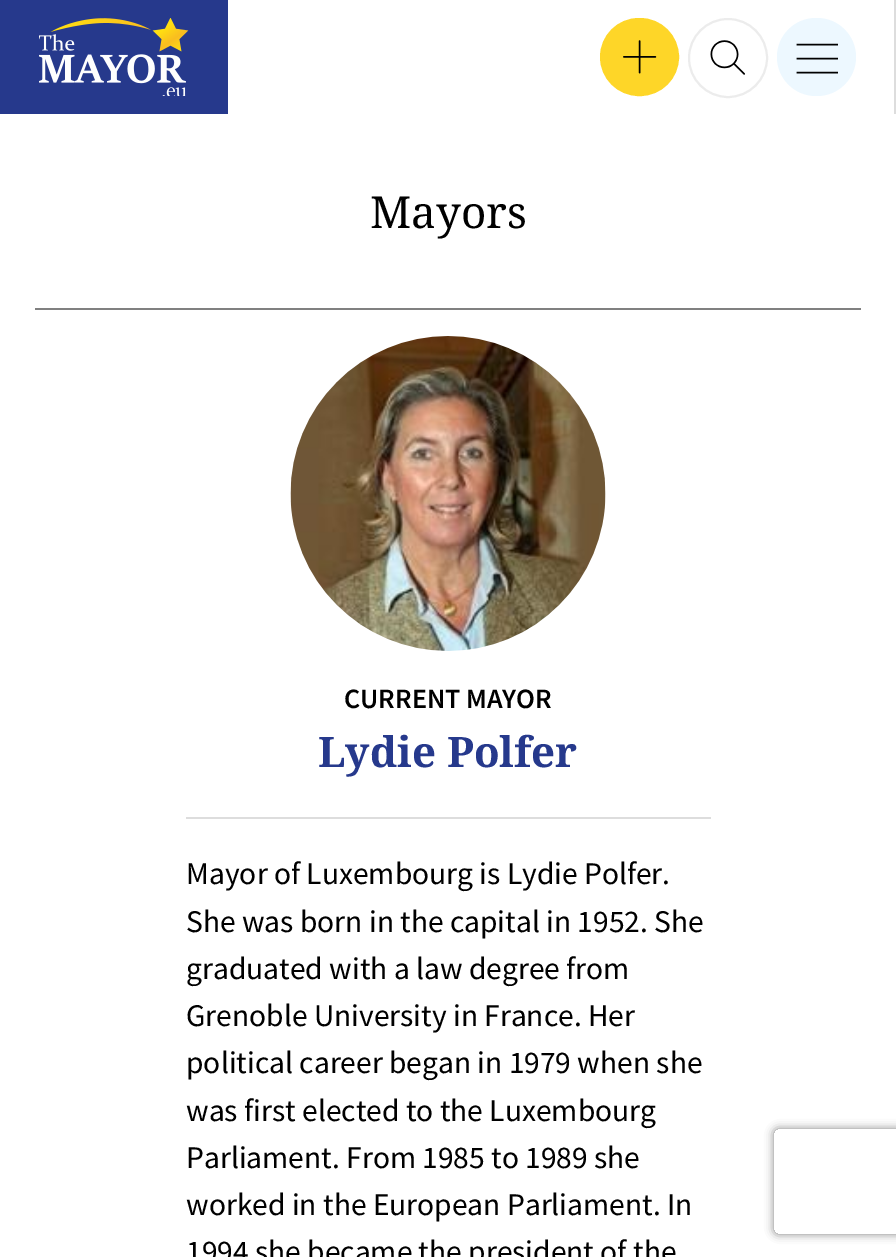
%!PS
<< /PageSize [896 1257] /PageUsesTransparency true >> setpagedevice
/rgb { 3 { 255 div 3 1 roll } repeat setrgbcolor } def
/font { [ exch dup neg 0 0 3 -1 roll 0 0 ] selectfont } def
/text { moveto show } def
/alpha { dup .setfillconstantalpha .setstrokeconstantalpha } def
/circle { newpath 0 360 arc closepath } def
/roundrect { 5 dict begin { /r /h /w /y /x } { exch def } forall
  x r add y moveto x w add y 2 copy h add r arct x w add y h add x 1 index r arct
  x y h add x y r arct x y 2 copy exch w add exch r arct closepath end } def
/shadow { 12 dict begin { /a /b /q /h /w /y /x } { exch def } forall gsave /was 0 def
  9 -2 -9 { dup b mul 4 div /e exch def 1 sub .425 mul 2.718 exch exp 1 add a .99 .min exch div /now exch def
    1 1 now sub 1 was sub div sub alpha /was now def
    w h .min e 2 mul add 0 gt { x e sub y e sub w e 2 mul add h e 2 mul add
      q e add b .6 mul add w h .min 2 div e add .min 0 .max roundrect fill } if } for grestore end } def
/picture { 5 dict begin { /h /w /y /x /name } { exch def } forall
  gsave x y translate w h scale
  w h 8 [w 0 0 h 0 0] name (r) file false 3 colorimage grestore end } def
0 .pushpdf14devicefilter
0 1257 translate 1 -1 scale
4 setmiterlimit
255 255 255 rgb
0 0 896 1257 rectfill
38 57 140 rgb
0 0 228 114 rectfill
(img_01.rgb) 39 18 150 78 picture
254 214 40 rgb
601 19 77 76 38 roundrect gsave fill grestore
2 setlinewidth
stroke
(img_02.rgb) 623 40 34 34 picture
236 236 236 rgb
728 58 39 circle stroke
(img_03.rgb) 710 40 35 35 picture
237 248 255 rgb
777 18 79 78 39 roundrect fill
(img_04.rgb) 796 43 42 31 picture
221 221 221 rgb
894 0 2 114 rectfill
128 128 128 rgb
35 308 826 2 rectfill
(img_05.rgb) 290 336 316 315 picture
221 221 221 rgb
186 817 525 2 rectfill
gsave
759 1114 moveto 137 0 rlineto 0 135 rlineto -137 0 rlineto closepath 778 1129 moveto 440 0 rlineto 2 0 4 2 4 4 rcurveto 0 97 rlineto 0 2 -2 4 -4 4 rcurveto -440 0 rlineto -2 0 -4 -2 -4 -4 rcurveto 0 -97 rlineto 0 -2 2 -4 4 -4 rcurveto closepath eoclip newpath
128 128 128 rgb
774 1129 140 105 4 4.5 1 shadow
grestore
/NotoSerif-Regular 44 font
0 0 0 rgb
(Mayors) 370 228 text
/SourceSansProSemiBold-SemiBold 28 font
(CURRENT MAYOR) 344 708 text
/NotoSerif-Bold 42 font
38 57 140 rgb
(Lydie Polfer) 318 767 text
/SourceSansPro-Regular 31.5 font
0 0 0 rgb
(Mayor of Luxembourg is Lydie Polfer.) 186 884 text
(She was born in the capital in 1952. She) 186 932 text
(graduated with a law degree from) 186 979 text
(Grenoble University in France. Her) 186 1026 text
(political career began in 1979 when she) 186 1073 text
(was first elected to the Luxembourg) 186 1121 text
(Parliament. From 1985 to 1989 she) 186 1168 text
(worked in the European Parliament. In) 186 1215 text
(1994 she became the president of the) 186 1262 text
.poppdf14devicefilter showpage
